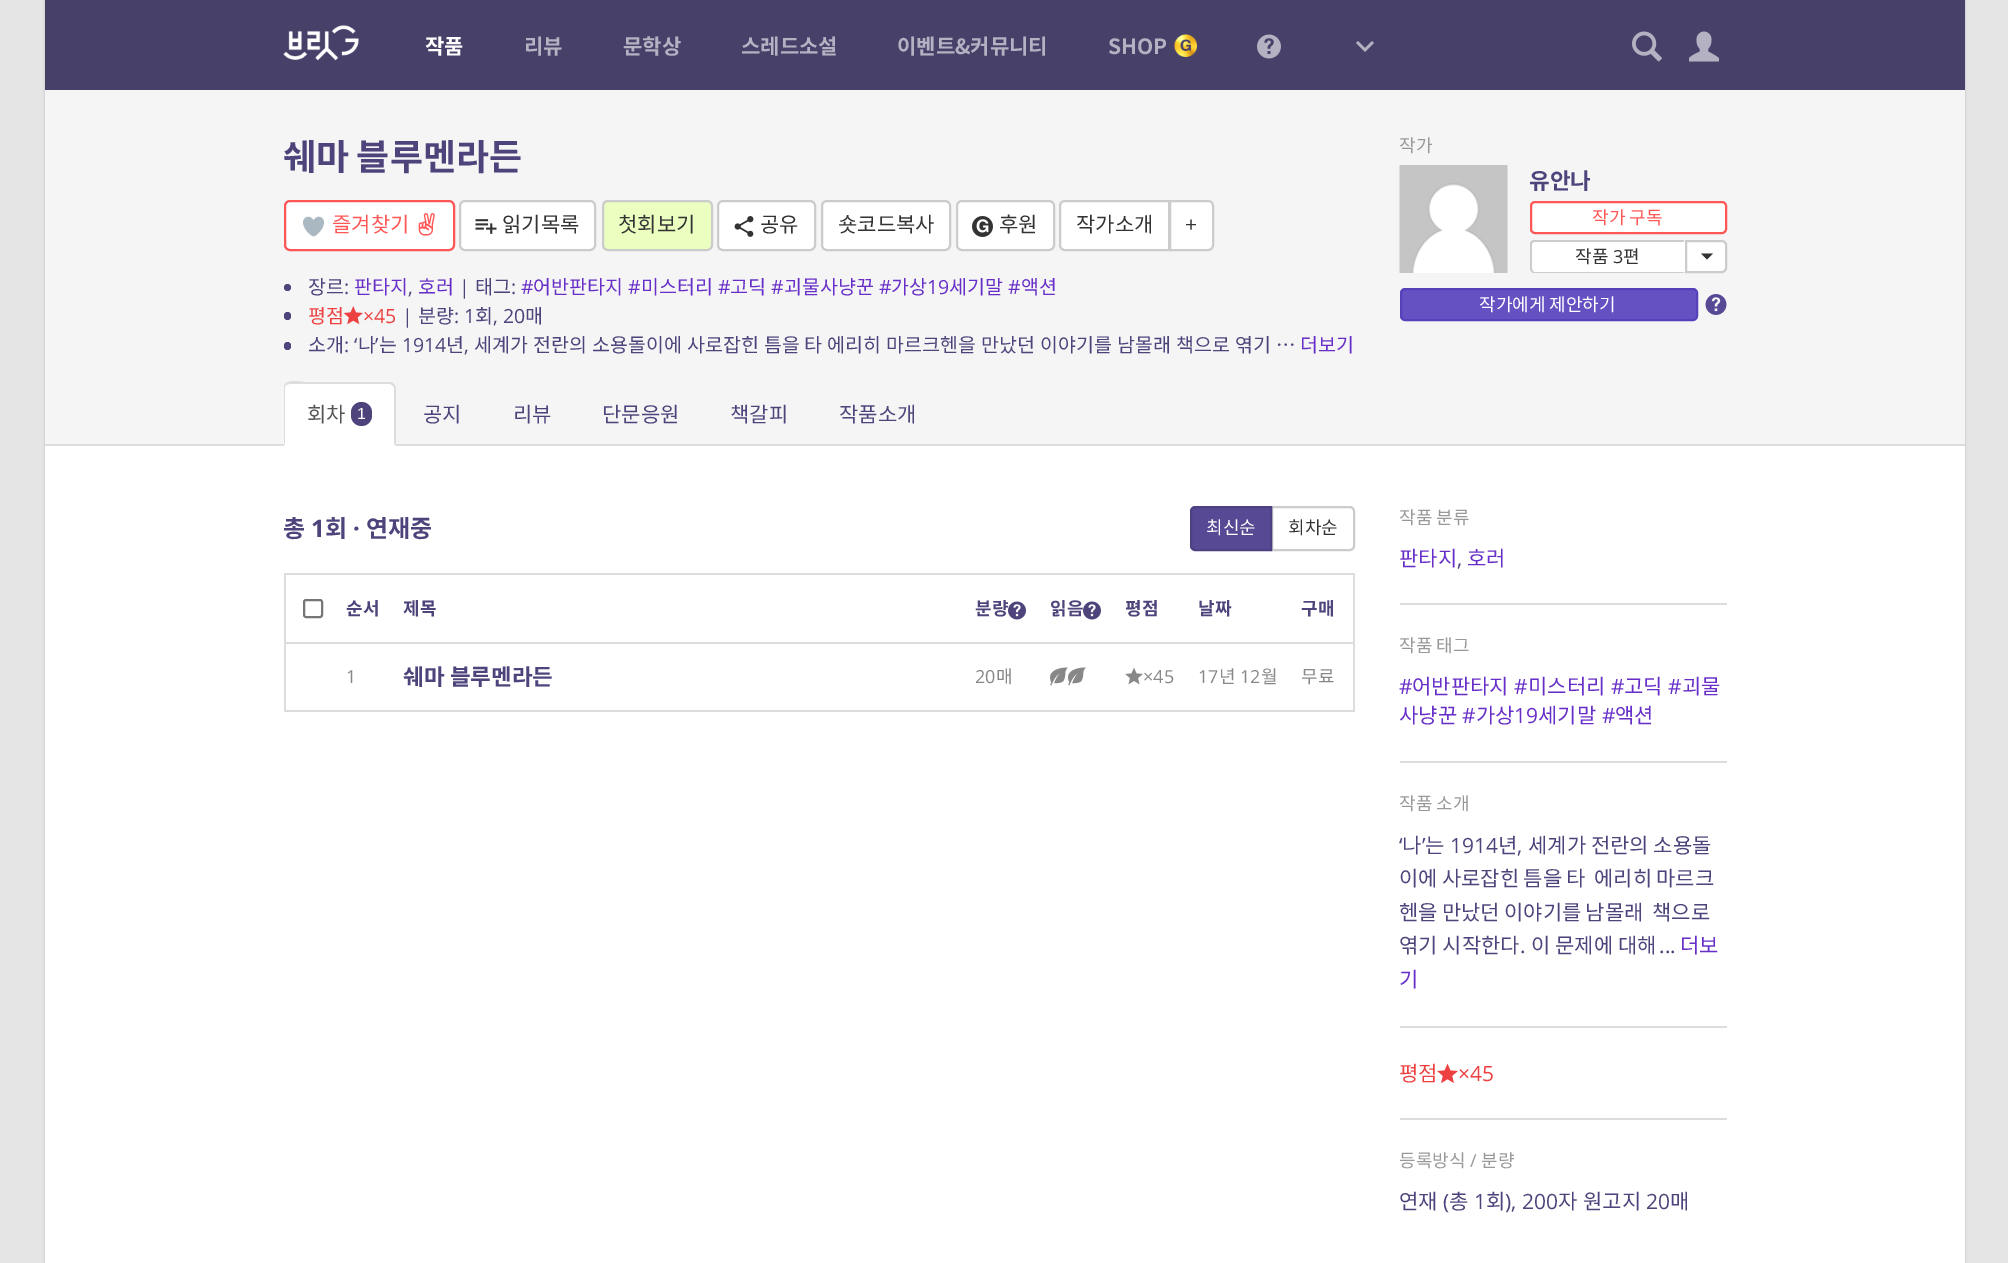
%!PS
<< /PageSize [2008 1263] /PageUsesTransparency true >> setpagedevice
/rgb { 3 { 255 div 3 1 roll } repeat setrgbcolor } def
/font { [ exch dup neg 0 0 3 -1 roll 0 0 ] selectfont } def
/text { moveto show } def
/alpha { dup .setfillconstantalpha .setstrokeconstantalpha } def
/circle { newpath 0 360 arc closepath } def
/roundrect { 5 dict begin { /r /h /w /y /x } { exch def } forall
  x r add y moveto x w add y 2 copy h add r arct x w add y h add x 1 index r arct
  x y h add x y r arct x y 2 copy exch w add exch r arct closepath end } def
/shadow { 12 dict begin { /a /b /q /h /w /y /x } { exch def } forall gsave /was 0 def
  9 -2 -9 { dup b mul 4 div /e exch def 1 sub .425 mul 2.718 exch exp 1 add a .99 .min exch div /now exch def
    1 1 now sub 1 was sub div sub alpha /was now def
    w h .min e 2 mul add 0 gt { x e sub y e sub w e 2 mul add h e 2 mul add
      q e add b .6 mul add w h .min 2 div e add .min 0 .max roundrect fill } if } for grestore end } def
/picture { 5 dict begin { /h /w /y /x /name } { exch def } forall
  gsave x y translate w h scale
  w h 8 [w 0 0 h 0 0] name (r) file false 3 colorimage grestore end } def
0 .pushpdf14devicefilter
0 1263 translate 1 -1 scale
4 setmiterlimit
229 229 229 rgb
0 0 2008 1263 rectfill
0 0 0 rgb
45 0 1920 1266 0 1 0.2 shadow
255 255 255 rgb
45 446 1920 817 rectfill
71 64 105 rgb
45 0 1920 90 rectfill
(img_01.rgb) 283 25 76 36 picture
(img_02.rgb) 1174 34 23 23 picture
(img_03.rgb) 1257 34 24 25 picture
180 177 194 rgb
1365 48 moveto -7 -7 rlineto -2 2 rlineto 9 9 rlineto 9 -9 rlineto -2 -2 rlineto closepath fill
(img_04.rgb) 1632 31 30 31 picture
(img_05.rgb) 1689 31 30 31 picture
245 245 245 rgb
45 90 1920 354 rectfill
221 221 221 rgb
45 444 1920 2 rectfill
255 255 255 rgb
285 201 169 49 5 roundrect gsave fill grestore
255 86 86 rgb
2 setlinewidth
stroke
(img_06.rgb) 302 216 23 21 picture
(img_07.rgb) 418 213 17 23 picture
255 255 255 rgb
460 201 135 49 5 roundrect gsave fill grestore
204 204 204 rgb
stroke
(img_08.rgb) 475 219 22 15 picture
234 255 192 rgb
603 201 109 49 5 roundrect gsave fill grestore
204 204 204 rgb
stroke
255 255 255 rgb
718 201 97 49 5 roundrect gsave fill grestore
204 204 204 rgb
stroke
(img_09.rgb) 734 216 20 21 picture
255 255 255 rgb
822 201 128 49 5 roundrect gsave fill grestore
204 204 204 rgb
stroke
255 255 255 rgb
957 201 97 49 5 roundrect gsave fill grestore
204 204 204 rgb
stroke
(img_10.rgb) 972 216 21 21 picture
255 255 255 rgb
1065 201 moveto 104 0 rlineto 0 49 rlineto -104 0 rlineto -3 0 -5 -2 -5 -5 rcurveto 0 -39 rlineto 0 -3 2 -5 5 -5 rcurveto closepath gsave fill grestore
204 204 204 rgb
stroke
255 255 255 rgb
1170 201 moveto 38 0 rlineto 3 0 5 2 5 5 rcurveto 0 39 rlineto 0 3 -2 5 -5 5 rcurveto -38 0 rlineto closepath gsave fill grestore
204 204 204 rgb
stroke
78 68 123 rgb
287.5 287.5 3.5 circle fill
284 312 7 8 3.5 roundrect fill
(img_11.rgb) 343 306 20 19 picture
284 342 7 8 3.5 roundrect fill
(img_12.rgb) 1399 165 109 108 picture
255 255 255 rgb
1531 202 195 31 4 roundrect gsave fill grestore
255 86 86 rgb
stroke
255 255 255 rgb
1535 242 moveto 150 0 rlineto 0 30 rlineto -150 0 rlineto -1.5 0 -3 -1.5 -3 -3 rcurveto 0 -24 rlineto 0 -1.5 1.5 -3 3 -3 rcurveto closepath fill
204 204 204 rgb
1534 240 moveto 150 0 rlineto 0 33 rlineto -150 0 rlineto -2 0 -4 -2 -4 -5 rcurveto 0 -24 rlineto 0 -2 2 -4 4 -4 rcurveto closepath 1534 242 moveto 150 0 rlineto 0 30 rlineto -150 0 rlineto -1 0 -2 -2 -2 -4 rcurveto 0 -24 rlineto 0 -1 1 -2 2 -2 rcurveto closepath eofill
255 255 255 rgb
1686 241 moveto 36 0 rlineto 2 0 4 2 4 4 rcurveto 0 23 rlineto 0 2 -2 4 -4 4 rcurveto -36 0 rlineto closepath gsave fill grestore
204 204 204 rgb
stroke
51 51 51 rgb
1701 253.5 moveto 12 0 rlineto -6 6 rlineto closepath fill
102 81 195 rgb
1401 289 296 31 4 roundrect gsave fill grestore
87 64 186 rgb
stroke
(img_13.rgb) 1705 294 22 21 picture
255 255 255 rgb
290 383 moveto 100 0 rlineto 3.5 0 6 2.5 6 6 rcurveto 0 57 rlineto -112 0 rlineto 0 -57 rlineto 0 -3.5 2.5 -6 6 -6 rcurveto closepath fill
221 221 221 rgb
290 384 moveto -2 0 -3 1 -4 1 rcurveto -1 -1 rlineto 4 -5 18 -2 20 -2 rcurveto 87 0 rlineto 2 2 rlineto -1 2 rlineto -1 -1 -2 -2 -3 -2 rcurveto closepath fill
396 446 moveto 0 -58 rlineto 0 -1 -1 -3 -2 -4 rcurveto -1 2 rlineto 1 2 rlineto 0 56 rlineto closepath fill
284 445 moveto 0 -57 rlineto 0 -1 0 -3 1 -4 rcurveto 1 1 rlineto -1 2 rlineto 0 57 rlineto closepath fill
78 68 123 rgb
351 402 21 24 10.5 roundrect fill
204 204 204 rgb
1272 507 moveto 78 0 rlineto 2 0 4 2 4 4 rcurveto 0 35 rlineto 0 2 -2 4 -4 4 rcurveto -78 0 rlineto closepath stroke
87 73 148 rgb
1195 507 moveto 76 0 rlineto 0 43 rlineto -76 0 rlineto -2 0 -4 -2 -4 -4 rcurveto 0 -35 rlineto 0 -2 2 -4 4 -4 rcurveto closepath gsave fill grestore
77 65 131 rgb
stroke
221 221 221 rgb
284 573 1071 2 rectfill
1353 573 2 138 rectfill
284 710 1071 2 rectfill
284 573 2 138 rectfill
118 118 118 rgb
304 600 18 17 2 roundrect stroke
(img_14.rgb) 1008 601 18 19 picture
(img_14.rgb) 1083 601 18 19 picture
(img_15.rgb) 1050 667 36 19 picture
(img_16.rgb) 1125 667 18 18 picture
221 221 221 rgb
284 642 1071 2 rectfill
1400 603 327 2 rectfill
1400 761 327 2 rectfill
1400 1026 327 2 rectfill
(img_17.rgb) 1437 1063 21 21 picture
1400 1118 327 2 rectfill
/NotoSansKR-Bold 21 font
255 255 255 rgb
(작품) 425 54 text
180 177 194 rgb
(리뷰) 524 54 text
(문학상) 623 54 text
(스레드소설) 741 54 text
(이벤트&커뮤니티) 897 54 text
(SHOP) 1108 54 text
/NotoSansKR-Bold 36 font
78 68 123 rgb
283 170 moveto -1 0 32 (쉐마 블루멘라든) widthshow
/NotoSansKR-Regular 21 font
255 86 86 rgb
(즐겨찾기) 332 232 text
51 51 51 rgb
(읽기목록) 502 232 text
(첫회보기) 618 232 text
(공유) 760 232 text
(숏코드복사) 838 232 text
(후원) 999 232 text
(작가소개) 1076 232 text
/OpenSans-Regular 21 font
(+) 1185 232 text
/NotoSansKR-Regular 19.5 font
78 68 123 rgb
(장르) 308 294 text
/OpenSans-Regular 19.5 font
(:) 344 294 text
/NotoSansKR-Regular 19.5 font
103 46 200 rgb
(판타지) 354 294 text
(호러) 418 294 text
/OpenSans-Regular 19.5 font
78 68 123 rgb
(|) 459 294 text
/NotoSansKR-Regular 19.5 font
(태그) 475 294 text
/OpenSans-Regular 19.5 font
(:) 511 294 text
103 46 200 rgb
(#) 521 294 text
/NotoSansKR-Regular 19.5 font
(어반판타지) 533 294 text
/OpenSans-Regular 19.5 font
(#) 628 294 text
/NotoSansKR-Regular 19.5 font
(미스터리) 641 294 text
/OpenSans-Regular 19.5 font
(#) 718 294 text
/NotoSansKR-Regular 19.5 font
(고딕) 730 294 text
/OpenSans-Regular 19.5 font
(#) 771 294 text
/NotoSansKR-Regular 19.5 font
(괴물사냥꾼) 784 294 text
/OpenSans-Regular 19.5 font
(#) 879 294 text
/NotoSansKR-Regular 19.5 font
(가상) 891 294 text
/OpenSans-Regular 19.5 font
(19) 927 294 text
/NotoSansKR-Regular 19.5 font
(세기말) 949 294 text
/OpenSans-Regular 19.5 font
(#) 1008 294 text
/NotoSansKR-Regular 19.5 font
(액션) 1021 294 text
/OpenSans-Regular 19.5 font
78 68 123 rgb
(,) 408 294 text
/NotoSansKR-Regular 19.5 font
237 65 65 rgb
(평점) 308 323 text
/OpenSans-Regular 19.5 font
(×45) 363 323 text
78 68 123 rgb
(|) 402 323 text
/NotoSansKR-Regular 19.5 font
(분량) 418 323 text
/OpenSans-Regular 19.5 font
(: 1) 454 323 text
/NotoSansKR-Regular 19.5 font
(회) 475 323 text
/OpenSans-Regular 19.5 font
(, 20) 493 323 text
/NotoSansKR-Regular 19.5 font
(매) 525 323 text
(소개) 308 352 text
/OpenSans-Regular 19.5 font
(: ‘) 344 352 text
/NotoSansKR-Regular 19.5 font
(나) 358 352 text
/OpenSans-Regular 19.5 font
(’) 375 352 text
/NotoSansKR-Regular 19.5 font
(는) 379 352 text
/OpenSans-Regular 19.5 font
(1914) 402 352 text
/NotoSansKR-Regular 19.5 font
(년) 446 352 text
(세계가) 474 352 text
(전란의) 533 352 text
(소용돌이에) 592 352 text
(사로잡힌) 687 352 text
(틈을) 764 352 text
(타) 804 352 text
(에리히) 827 352 text
(마르크헨을) 886 352 text
(만났던) 981 352 text
(이야기를) 1040 352 text
(남몰래) 1117 352 text
(책으로) 1176 352 text
(엮기) 1235 352 text
(…) 1276 352 text
/OpenSans-Regular 19.5 font
(,) 464 352 text
/NotoSansKR-Regular 19.5 font
103 46 200 rgb
(더보기) 1300 352 text
/NotoSansKR-Regular 18 font
153 153 153 rgb
(작가) 1399 152 text
/NotoSansKR-Bold 22.5 font
78 68 123 rgb
(유안나) 1529 189 text
/NotoSansKR-Regular 18 font
255 86 86 rgb
(작가 구독) 1592 224 text
51 51 51 rgb
(작품) 1575 263 text
/OpenSans-Regular 18 font
(3) 1613 263 text
/NotoSansKR-Regular 18 font
(편) 1623 263 text
255 255 255 rgb
(작가에게 제안하기) 1479 311 text
/NotoSansKR-Regular 21 font
85 85 85 rgb
(회차) 307 422 text
/LiberationSans-Regular 16 font
255 255 255 rgb
(1) 357 419 text
/NotoSansKR-Regular 21 font
78 68 123 rgb
(공지) 423 422 text
(리뷰) 513 422 text
(단문응원) 602 422 text
(책갈피) 730 422 text
(작품소개) 839 422 text
/NotoSansKR-Bold 24 font
(총) 283 537 text
/OpenSans-Bold 24 font
(1) 311 537 text
/NotoSansKR-Bold 24 font
(회) 325 537 text
/OpenSans-Bold 24 font
(·) 353 537 text
/NotoSansKR-Bold 24 font
(연재중) 366 537 text
/NotoSansKR-Regular 18 font
255 255 255 rgb
(최신순) 1206 534 text
51 51 51 rgb
(회차순) 1288 534 text
/NotoSansKR-Bold 18 font
78 68 123 rgb
(순서) 346 615 text
(제목) 403 615 text
(분량) 975 615 text
(읽음) 1050 615 text
(평점) 1125 615 text
(날짜) 1198 615 text
(구매) 1301 615 text
/OpenSans-Regular 18 font
136 136 136 rgb
(1) 346 683 text
/NotoSansKR-Bold 22.5 font
78 68 123 rgb
(쉐마 블루멘라든) 403 685 text
/OpenSans-Regular 18 font
136 136 136 rgb
(20) 975 683 text
/NotoSansKR-Regular 18 font
(매) 996 683 text
/OpenSans-Regular 18 font
(×45) 1143 683 text
(17) 1198 683 text
/NotoSansKR-Regular 18 font
(년) 1219 683 text
/OpenSans-Regular 18 font
(12) 1240 683 text
/NotoSansKR-Regular 18 font
(월) 1261 683 text
(무료) 1301 683 text
153 153 153 rgb
(작품 분류) 1399 524 text
/NotoSansKR-Regular 21 font
103 46 200 rgb
(판타지) 1399 566 text
/OpenSans-Regular 21 font
78 68 123 rgb
(,) 1457 566 text
/NotoSansKR-Regular 21 font
103 46 200 rgb
(호러) 1467 566 text
/NotoSansKR-Regular 18 font
153 153 153 rgb
(작품 태그) 1399 652 text
/OpenSans-Regular 21 font
103 46 200 rgb
(#) 1399 694 text
/NotoSansKR-Regular 21 font
(어반판타지) 1412 694 text
/OpenSans-Regular 21 font
(#) 1514 694 text
/NotoSansKR-Regular 21 font
(미스터리) 1528 694 text
/OpenSans-Regular 21 font
(#) 1611 694 text
/NotoSansKR-Regular 21 font
(고딕) 1624 694 text
/OpenSans-Regular 21 font
(#) 1668 694 text
/NotoSansKR-Regular 21 font
(괴물) 1682 694 text
(사냥꾼) 1399 723 text
/OpenSans-Regular 21 font
(#) 1462 723 text
/NotoSansKR-Regular 21 font
(가상) 1476 723 text
/OpenSans-Regular 21 font
(19) 1514 723 text
/NotoSansKR-Regular 21 font
(세기말) 1538 723 text
/OpenSans-Regular 21 font
(#) 1602 723 text
/NotoSansKR-Regular 21 font
(액션) 1615 723 text
/NotoSansKR-Regular 18 font
153 153 153 rgb
(작품 소개) 1399 810 text
/OpenSans-Regular 21 font
78 68 123 rgb
(‘) 1399 853 text
/NotoSansKR-Regular 21 font
(나) 1402 853 text
/OpenSans-Regular 21 font
(’) 1422 853 text
/NotoSansKR-Regular 21 font
(는) 1425 853 text
/OpenSans-Regular 21 font
(1914) 1450 853 text
/NotoSansKR-Regular 21 font
(년) 1498 853 text
(세계가 전란의 소용돌) 1528 853 text
/OpenSans-Regular 21 font
(,) 1517 853 text
/NotoSansKR-Regular 21 font
1399 886 moveto -0.5 0 32 (이에 사로잡힌 틈을 타) widthshow
1594 886 moveto -0.5 0 32 (에리히 마르크) widthshow
1399 920 moveto -0.5 0 32 (헨을 만났던 이야기를 남몰래) widthshow
1652 920 moveto -0.5 0 32 (책으로) widthshow
(엮기 시작한다) 1399 953 text
/OpenSans-Regular 21 font
(.) 1520 953 text
/NotoSansKR-Regular 21 font
(이 문제에 대해) 1531 953 text
/OpenSans-Regular 21 font
(...) 1659 953 text
/NotoSansKR-Regular 21 font
103 46 200 rgb
(더보) 1680 953 text
(기) 1399 987 text
237 65 65 rgb
(평점) 1399 1081 text
/OpenSans-Regular 21 font
(×45) 1458 1081 text
/NotoSansKR-Regular 18 font
153 153 153 rgb
(등록방식) 1399 1167 text
/OpenSans-Regular 18 font
(/) 1470 1167 text
/NotoSansKR-Regular 18 font
(분량) 1481 1167 text
/NotoSansKR-Regular 21 font
78 68 123 rgb
(연재) 1399 1209 text
/OpenSans-Regular 21 font
(\() 1443 1209 text
/NotoSansKR-Regular 21 font
(총) 1449 1209 text
/OpenSans-Regular 21 font
(1) 1474 1209 text
/NotoSansKR-Regular 21 font
(회) 1486 1209 text
/OpenSans-Regular 21 font
(\), 200) 1505 1209 text
/NotoSansKR-Regular 21 font
(자) 1558 1209 text
(원고지) 1583 1209 text
/OpenSans-Regular 21 font
(20) 1646 1209 text
/NotoSansKR-Regular 21 font
(매) 1670 1209 text
.poppdf14devicefilter showpage
